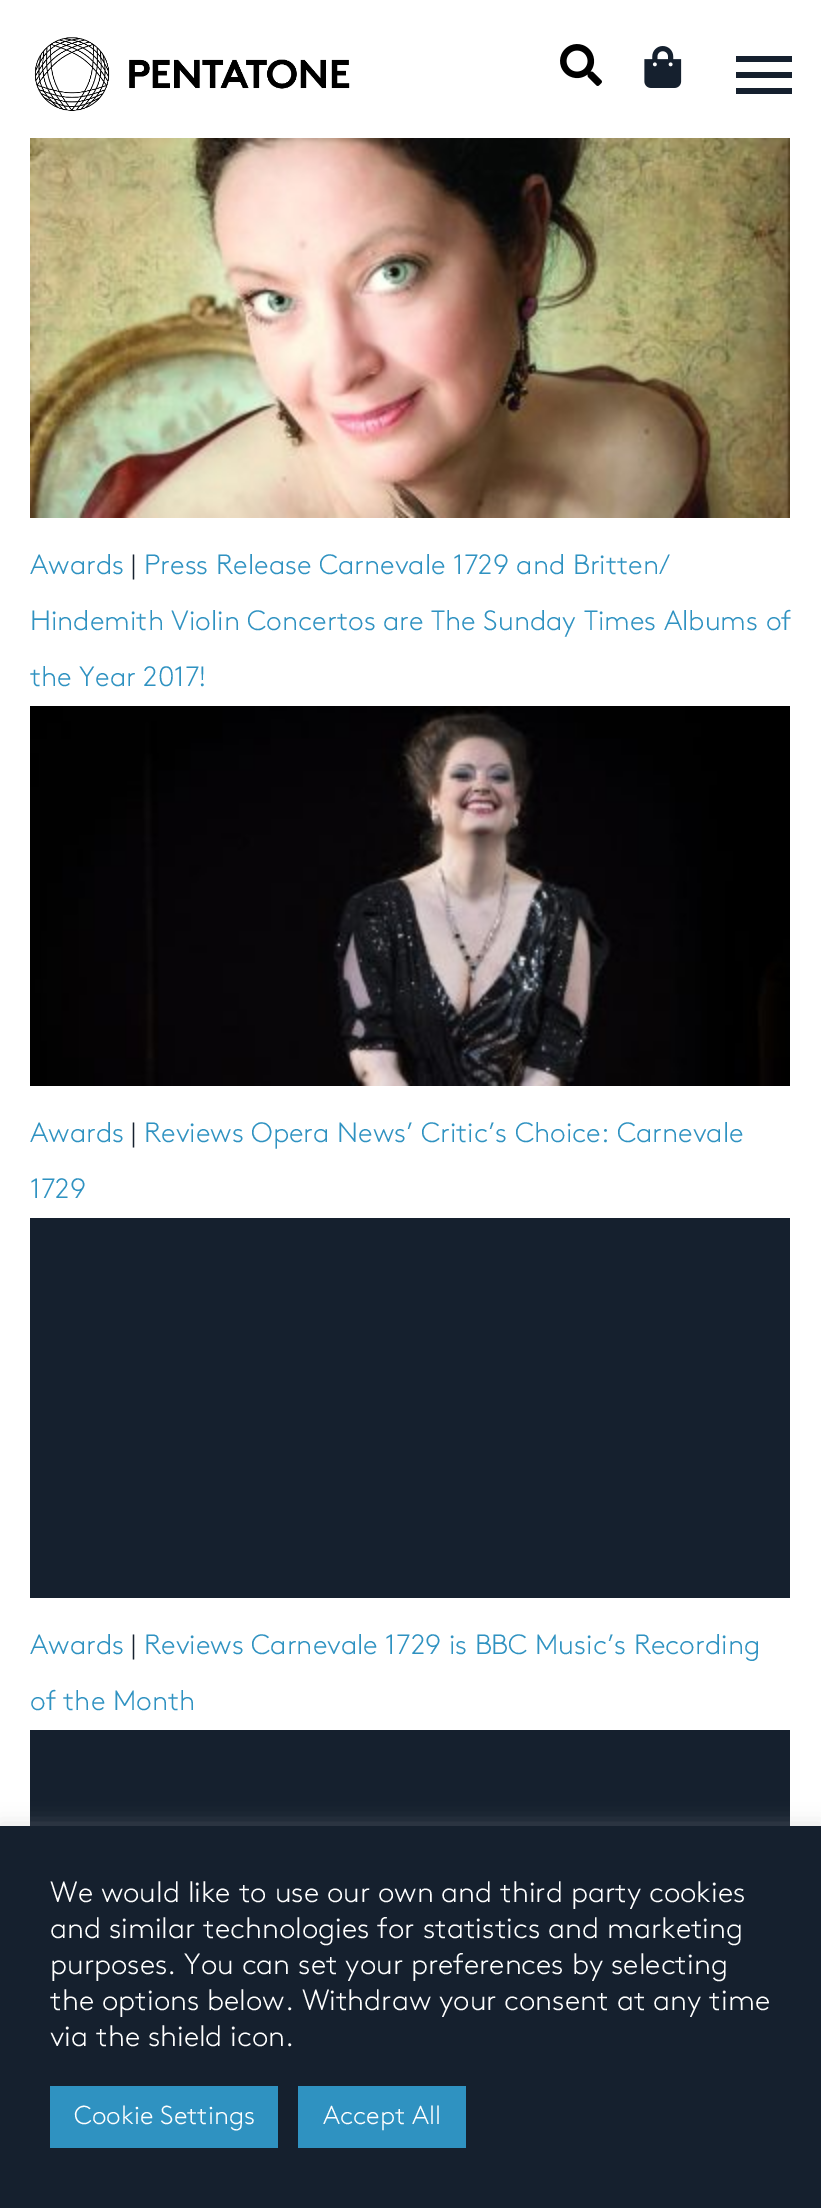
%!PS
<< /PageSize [821 2208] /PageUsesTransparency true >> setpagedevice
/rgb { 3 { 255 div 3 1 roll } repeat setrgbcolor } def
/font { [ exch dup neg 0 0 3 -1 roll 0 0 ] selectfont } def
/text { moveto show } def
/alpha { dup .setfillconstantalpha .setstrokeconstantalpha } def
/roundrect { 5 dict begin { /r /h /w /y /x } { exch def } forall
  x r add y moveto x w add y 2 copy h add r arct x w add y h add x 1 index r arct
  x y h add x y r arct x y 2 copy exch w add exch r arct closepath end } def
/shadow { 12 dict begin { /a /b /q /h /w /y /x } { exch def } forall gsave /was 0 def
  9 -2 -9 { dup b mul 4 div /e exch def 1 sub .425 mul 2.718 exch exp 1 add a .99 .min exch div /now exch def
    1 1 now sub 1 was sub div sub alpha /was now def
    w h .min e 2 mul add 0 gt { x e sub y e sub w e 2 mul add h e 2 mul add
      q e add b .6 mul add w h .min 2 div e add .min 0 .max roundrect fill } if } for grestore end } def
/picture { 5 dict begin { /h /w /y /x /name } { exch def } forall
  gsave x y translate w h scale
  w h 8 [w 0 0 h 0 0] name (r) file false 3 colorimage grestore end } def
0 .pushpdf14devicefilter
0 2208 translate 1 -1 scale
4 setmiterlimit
255 255 255 rgb
0 0 821 2208 rectfill
(img_01.rgb) 34 37 316 74 picture
(img_02.rgb) 560 44 42 42 picture
(img_03.rgb) 644 46 38 42 picture
21 32 46 rgb
736 72 56 6 rectfill
736 56 56 6 rectfill
736 88 56 6 rectfill
(img_04.rgb) 30 138 760 380 picture
(img_05.rgb) 30 706 760 380 picture
30 1218 760 380 rectfill
30 1730 760 96 rectfill
172 171 171 rgb
0 1824 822 382 0 10 0.3 shadow
21 32 46 rgb
0 1826 821 382 rectfill
47 146 193 rgb
50 2086 228 62 rectfill
298 2086 168 62 rectfill
/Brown-Light 28 font
(Awards) 30 574 text
21 32 46 rgb
(|) 131 574 text
47 146 193 rgb
(Press Release Carnevale 1729 and Britten/) 144 574 text
(Hindemith Violin Concertos are The Sunday Times Albums of) 30 630 text
(the Year 2017!) 30 686 text
(Awards) 30 1142 text
21 32 46 rgb
(|) 131 1142 text
47 146 193 rgb
(Reviews Opera News’ Critic’s Choice: Carnevale) 144 1142 text
(1729) 30 1198 text
(Awards) 30 1654 text
21 32 46 rgb
(|) 131 1654 text
47 146 193 rgb
(Reviews Carnevale 1729 is BBC Music’s Recording) 144 1654 text
(of the Month) 30 1710 text
/Brown-Light 29.3 font
255 255 255 rgb
(We would like to use our own and third party cookies) 50 1902 text
(and similar technologies for statistics and marketing) 50 1938 text
(purposes. You can set your preferences by selecting) 50 1974 text
(the options below. Withdraw your consent at any time) 50 2010 text
(via the shield icon.) 50 2046 text
/Brown-Light 26 font
(Cookie Settings) 74 2124 text
(Accept All) 323 2124 text
.poppdf14devicefilter showpage
